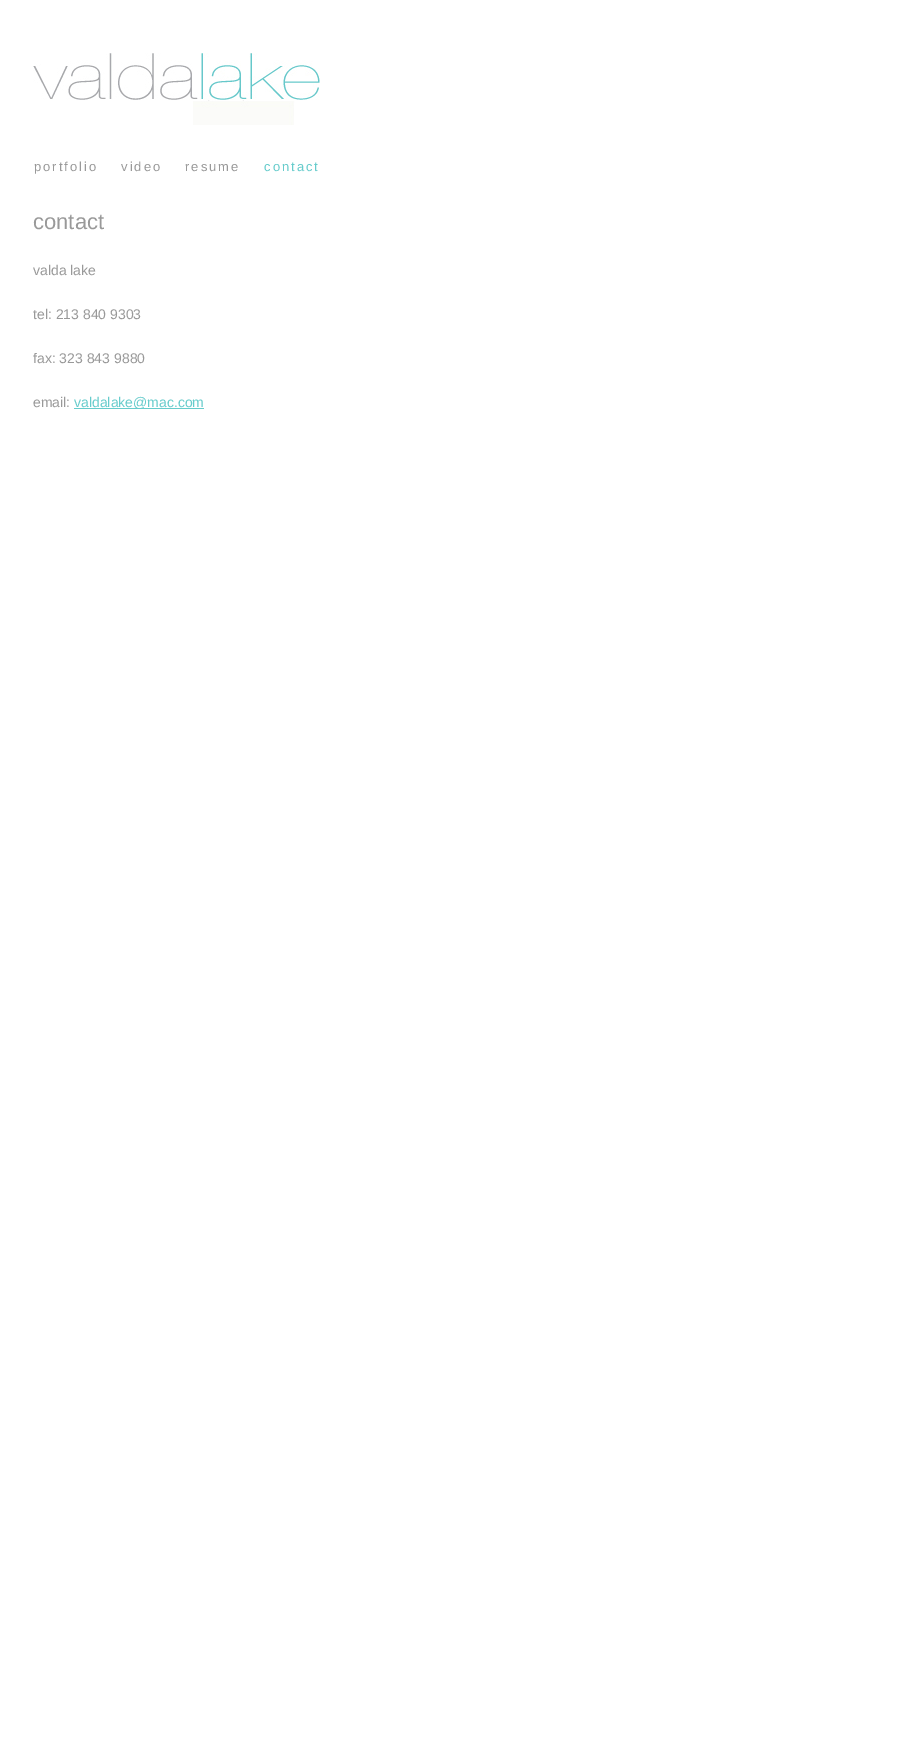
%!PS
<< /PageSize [922 1760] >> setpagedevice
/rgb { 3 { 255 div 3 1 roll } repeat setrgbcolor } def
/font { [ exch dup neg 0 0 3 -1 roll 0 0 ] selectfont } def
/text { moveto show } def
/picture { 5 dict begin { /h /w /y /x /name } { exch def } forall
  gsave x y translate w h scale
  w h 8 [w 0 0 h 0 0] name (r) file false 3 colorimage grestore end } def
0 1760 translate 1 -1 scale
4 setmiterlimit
255 255 255 rgb
0 0 922 1760 rectfill
(img_01.rgb) 33 53 287 72 picture
102 204 204 rgb
74 408 130 1 rectfill
/LiberationSans-Regular 13 font
153 153 153 rgb
34 171 moveto 2 0 (portfolio) ashow
121 171 moveto 2 0 (video) ashow
185 171 moveto 2 0 (resume) ashow
102 204 204 rgb
264 171 moveto 2 0 (contact) ashow
/LiberationSans-Regular 22 font
153 153 153 rgb
(contact) 33 229 text
/LiberationSans-Regular 14 font
(valda lake) 33 275 text
(tel: 213 840 9303) 33 319 text
(fax: 323 843 9880) 33 363 text
(email:) 33 407 text
102 204 204 rgb
(valdalake@mac.com) 74 407 text
showpage
